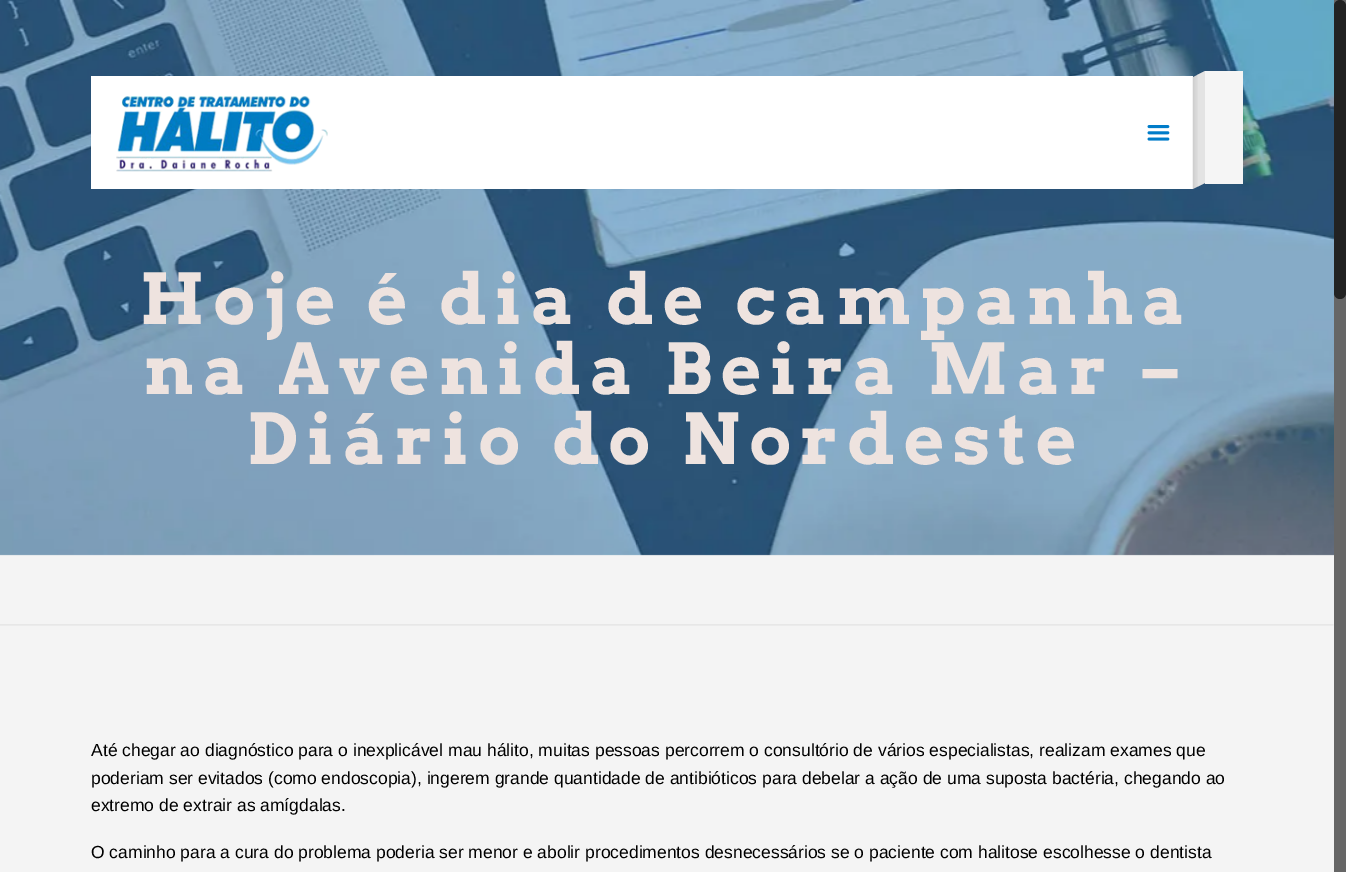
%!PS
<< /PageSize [1346 872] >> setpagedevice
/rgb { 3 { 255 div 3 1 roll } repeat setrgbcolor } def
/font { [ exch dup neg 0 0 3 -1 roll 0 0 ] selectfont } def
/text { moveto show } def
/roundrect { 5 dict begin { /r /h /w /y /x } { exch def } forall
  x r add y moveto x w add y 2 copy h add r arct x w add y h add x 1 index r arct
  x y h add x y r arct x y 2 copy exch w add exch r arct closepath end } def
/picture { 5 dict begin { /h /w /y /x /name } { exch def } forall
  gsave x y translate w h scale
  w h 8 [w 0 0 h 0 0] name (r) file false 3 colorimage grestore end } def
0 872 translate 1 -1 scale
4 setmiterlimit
244 244 244 rgb
0 0 1346 872 rectfill
(img_01.rgb) 0 0 1334 556 picture
255 255 255 rgb
91 76 1102 113 rectfill
(img_02.rgb) 116 96 212 76 picture
(img_03.rgb) 1147 125 23 16 picture
245 245 245 rgb
1205 71 38 113 rectfill
227 227 227 rgb
1193 77 moveto 12 -6 rlineto 0 112 rlineto -12 6 rlineto closepath fill
(img_04.rgb) 1192 75 6 114 picture
(img_05.rgb) 0 624 1334 2 picture
102 102 102 rgb
1334 0 12 872 rectfill
34 34 34 rgb
1334 0 12 299 6 roundrect fill
/Arvo-Bold 70 font
238 227 223 rgb
140 324 moveto 8.75 0 (Hoje é dia de campanha) ashow
144 394 moveto 8.75 0 (na Avenida Beira Mar –) ashow
248 464 moveto 8.75 0 (Diário do Nordeste) ashow
/LiberationSans-Regular 17.5 font
0 0 0 rgb
(Até chegar ao diagnóstico para o inexplicável mau hálito, muitas pessoas percorrem o consultório de vários especialistas, realizam exames que) 91 756 text
(poderiam ser evitados \(como endoscopia\), ingerem grande quantidade de antibióticos para debelar a ação de uma suposta bactéria, chegando ao) 91 784 text
(extremo de extrair as amígdalas.) 91 811 text
(O caminho para a cura do problema poderia ser menor e abolir procedimentos desnecessários se o paciente com halitose escolhesse o dentista) 91 858 text
showpage
